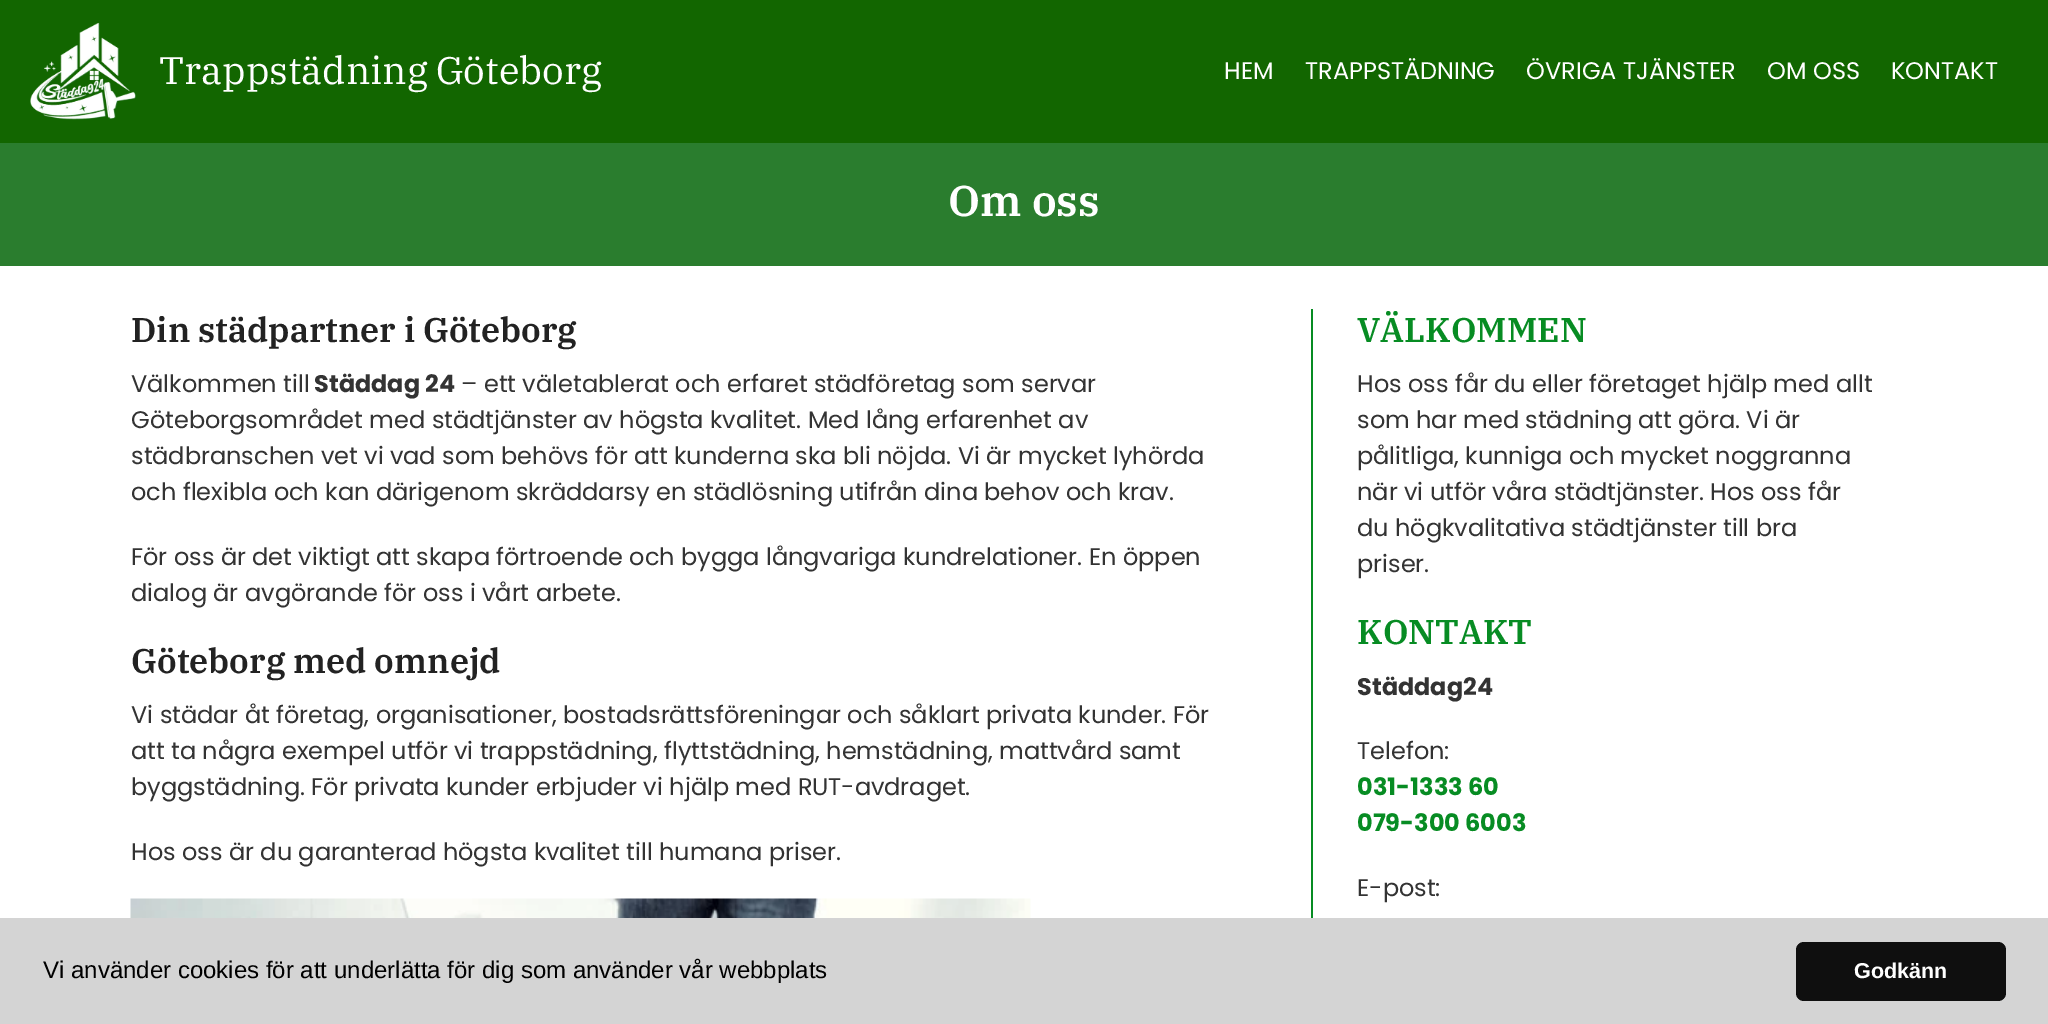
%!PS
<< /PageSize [2048 1024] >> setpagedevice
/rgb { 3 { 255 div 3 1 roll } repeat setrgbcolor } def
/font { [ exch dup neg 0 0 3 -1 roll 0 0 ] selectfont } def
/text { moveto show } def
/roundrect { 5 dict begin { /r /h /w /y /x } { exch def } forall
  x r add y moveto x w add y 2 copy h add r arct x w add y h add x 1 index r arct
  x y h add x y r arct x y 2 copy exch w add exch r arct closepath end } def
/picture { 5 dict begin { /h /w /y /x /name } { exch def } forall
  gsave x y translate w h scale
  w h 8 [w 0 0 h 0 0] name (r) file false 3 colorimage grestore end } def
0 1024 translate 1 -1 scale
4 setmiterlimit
255 255 255 rgb
0 0 2048 1024 rectfill
18 102 0 rgb
0 0 2048 143 rectfill
(img_01.rgb) 30 22 106 98 picture
42 125 46 rgb
0 143 2048 123 rectfill
(img_02.rgb) 130 898 901 20 picture
7 140 35 rgb
1311 309 2 609 rectfill
212 212 212 rgb
0 918 2048 106 rectfill
15 15 15 rgb
1796 942 210 59 8 roundrect fill
/IBMPlexSerif-Regular 38.4 font
255 255 255 rgb
159 84 moveto -1 0 32 (Trappstädning Göteborg) widthshow
/Poppins-Regular 24 font
(HEM) 1224 79 text
(TRAPPSTÄDNING) 1305 79 text
(ÖVRIGA TJÄNSTER) 1526 79 text
(OM OSS) 1767 79 text
(KONTAKT) 1891 79 text
/IBMPlexSerif-SemiBold 43 font
(Om oss) 948 216 text
/IBMPlexSerif-SemiBold 34.25 font
34 34 34 rgb
(Din städpartner i Göteborg) 131 342 text
/Poppins-Regular 24 font
51 51 51 rgb
(Välkommen till) 131 392 text
/Poppins-Bold 24 font
(Städdag 24) 314 392 text
/Poppins-Regular 24 font
(– ett väletablerat och erfaret städföretag som servar) 461 392 text
(Göteborgsområdet med städtjänster av högsta kvalitet. Med lång erfarenhet av) 131 428 text
(städbranschen vet vi vad som behövs för att kunderna ska bli nöjda. Vi är mycket lyhörda) 131 464 text
(och flexibla och kan därigenom skräddarsy en städlösning utifrån dina behov och krav.) 131 500 text
(För oss är det viktigt att skapa förtroende och bygga långvariga kundrelationer. En öppen) 131 565 text
(dialog är avgörande för oss i vårt arbete.) 131 601 text
/IBMPlexSerif-SemiBold 34.25 font
34 34 34 rgb
(Göteborg med omnejd) 131 673 text
/Poppins-Regular 24 font
51 51 51 rgb
(Vi städar åt företag, organisationer, bostadsrättsföreningar och såklart privata kunder. För) 131 723 text
(att ta några exempel utför vi trappstädning, flyttstädning, hemstädning, mattvård samt) 131 759 text
(byggstädning. För privata kunder erbjuder vi hjälp med RUT-avdraget.) 131 795 text
(Hos oss är du garanterad högsta kvalitet till humana priser.) 131 860 text
/IBMPlexSerif-SemiBold 34.25 font
7 140 35 rgb
(VÄLKOMMEN) 1357 342 text
/Poppins-Regular 24 font
51 51 51 rgb
(Hos oss får du eller företaget hjälp med allt) 1357 392 text
(som har med städning att göra. Vi är) 1357 428 text
(pålitliga, kunniga och mycket noggranna) 1357 464 text
(när vi utför våra städtjänster. Hos oss får) 1357 500 text
(du högkvalitativa städtjänster till bra) 1357 536 text
(priser.) 1357 572 text
/IBMPlexSerif-SemiBold 34.25 font
7 140 35 rgb
(KONTAKT) 1357 644 text
/Poppins-Bold 24 font
51 51 51 rgb
(Städdag24) 1357 695 text
/Poppins-Regular 24 font
(Telefon:) 1357 759 text
/Poppins-Bold 24 font
7 140 35 rgb
(031-1333 60) 1357 795 text
(079-300 6003) 1357 831 text
/Poppins-Regular 24 font
51 51 51 rgb
(E-post:) 1357 896 text
/LiberationSans-Regular 24 font
0 0 0 rgb
(Vi använder cookies för att underlätta för dig som använder vår webbplats) 43 978 text
/LiberationSans-Bold 21.5 font
255 255 255 rgb
(Godkänn) 1854 978 text
showpage
